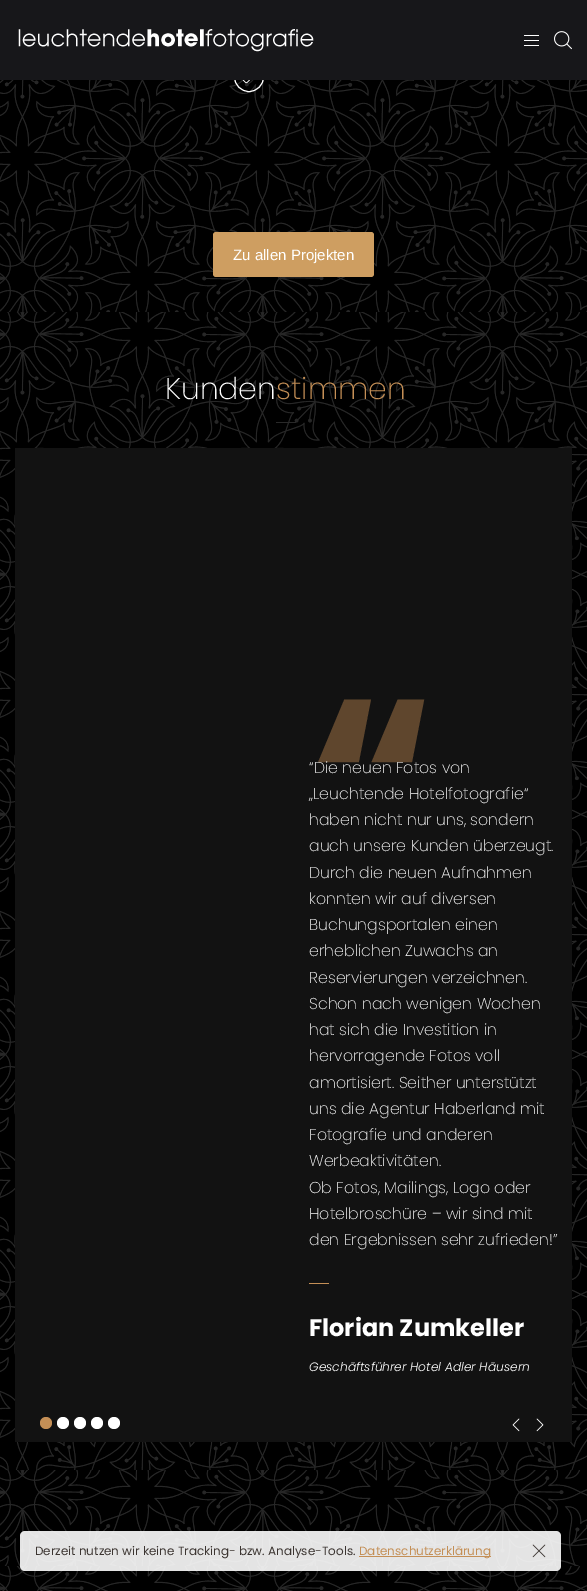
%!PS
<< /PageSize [587 1591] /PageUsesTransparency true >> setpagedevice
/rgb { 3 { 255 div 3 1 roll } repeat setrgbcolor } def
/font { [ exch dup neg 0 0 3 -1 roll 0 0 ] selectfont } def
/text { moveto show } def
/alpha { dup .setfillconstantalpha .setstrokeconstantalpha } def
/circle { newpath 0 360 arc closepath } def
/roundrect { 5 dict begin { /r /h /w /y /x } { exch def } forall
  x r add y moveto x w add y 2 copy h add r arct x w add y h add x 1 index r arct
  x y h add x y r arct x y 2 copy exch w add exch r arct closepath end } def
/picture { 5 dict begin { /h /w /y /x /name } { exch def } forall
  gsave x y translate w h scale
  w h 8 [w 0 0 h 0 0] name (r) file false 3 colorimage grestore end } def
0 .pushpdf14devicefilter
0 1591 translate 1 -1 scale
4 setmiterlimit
255 255 255 rgb
0 0 587 1591 rectfill
(img_03.rgb) 0 80 587 232 picture
249 77 14.5 circle stroke
23 23 26 rgb
0 0 587 80 rectfill
(img_01.rgb) 18 29 296 23 picture
255 255 255 rgb
524 35 15 1 rectfill
524 40 15 1 rectfill
524 45 15 1 rectfill
(img_02.rgb) 554 31 18 19 picture
(img_04.rgb) 242 80 9 4 picture
206 158 97 rgb
213 232 161 45 3 roundrect fill
(img_05.rgb) 0 312 587 1158 picture
41 41 41 rgb
276 422 20 1 rectfill
18 18 18 rgb
15 448 557 994 rectfill
196 143 86 rgb
309 1283 20 1 rectfill
46 1423 6 circle fill
255 255 255 rgb
63 1423 6 circle fill
80 1423 6 circle fill
97 1423 6 circle fill
114 1423 6 circle fill
(img_06.rgb) 512 1418 8 14 picture
(img_07.rgb) 536 1418 8 14 picture
(img_08.rgb) 0 1470 587 96 picture
(img_09.rgb) 0 1566 587 25 picture
0.9 alpha
253 253 253 rgb
20 1531 541 40 5 roundrect fill
1 alpha
196 143 86 rgb
359 1556 132 1 rectfill
(img_10.rgb) 532 1544 14 14 picture
/LiberationSans-Regular 15 font
255 255 255 rgb
(Zu allen Projekten) 233 260 text
/Poppins-ExtraLight 30 font
(Kunden) 165 399 text
196 143 86 rgb
(stimmen) 276 399 text
/Poppins-Bold 235 font
95 70 45 rgb
(“) 309 864 text
/Poppins-ExtraLight 15.75 font
255 255 255 rgb
(“Die neuen Fotos von) 309 773 text
(„Leuchtende Hotelfotografie“) 309 799 text
(haben nicht nur uns, sondern) 309 825 text
(auch unsere Kunden überzeugt.) 309 851 text
(Durch die neuen Aufnahmen) 309 878 text
(konnten wir auf diversen) 309 904 text
(Buchungsportalen einen) 309 930 text
(erheblichen Zuwachs an) 309 956 text
(Reservierungen verzeichnen.) 309 983 text
(Schon nach wenigen Wochen) 309 1009 text
(hat sich die Investition in) 309 1035 text
(hervorragende Fotos voll) 309 1061 text
(amortisiert. Seither unterstützt) 309 1088 text
(uns die Agentur Haberland mit) 309 1114 text
(Fotografie und anderen) 309 1140 text
(Werbeaktivitäten.) 309 1166 text
(Ob Fotos, Mailings, Logo oder) 309 1193 text
(Hotelbroschüre – wir sind mit) 309 1219 text
(den Ergebnissen sehr zufrieden!”) 309 1245 text
/Poppins-Bold 24 font
(Florian Zumkeller) 309 1336 text
/Poppins-LightItalic 12.25 font
(Geschäftsführer Hotel Adler Häusern) 309 1371 text
/Poppins-Regular 12 font
60 53 49 rgb
(Derzeit nutzen wir keine Tracking- bzw. Analyse-Tools.) 35 1555 text
196 143 86 rgb
(Datenschutzerklärung) 359 1555 text
.poppdf14devicefilter showpage
